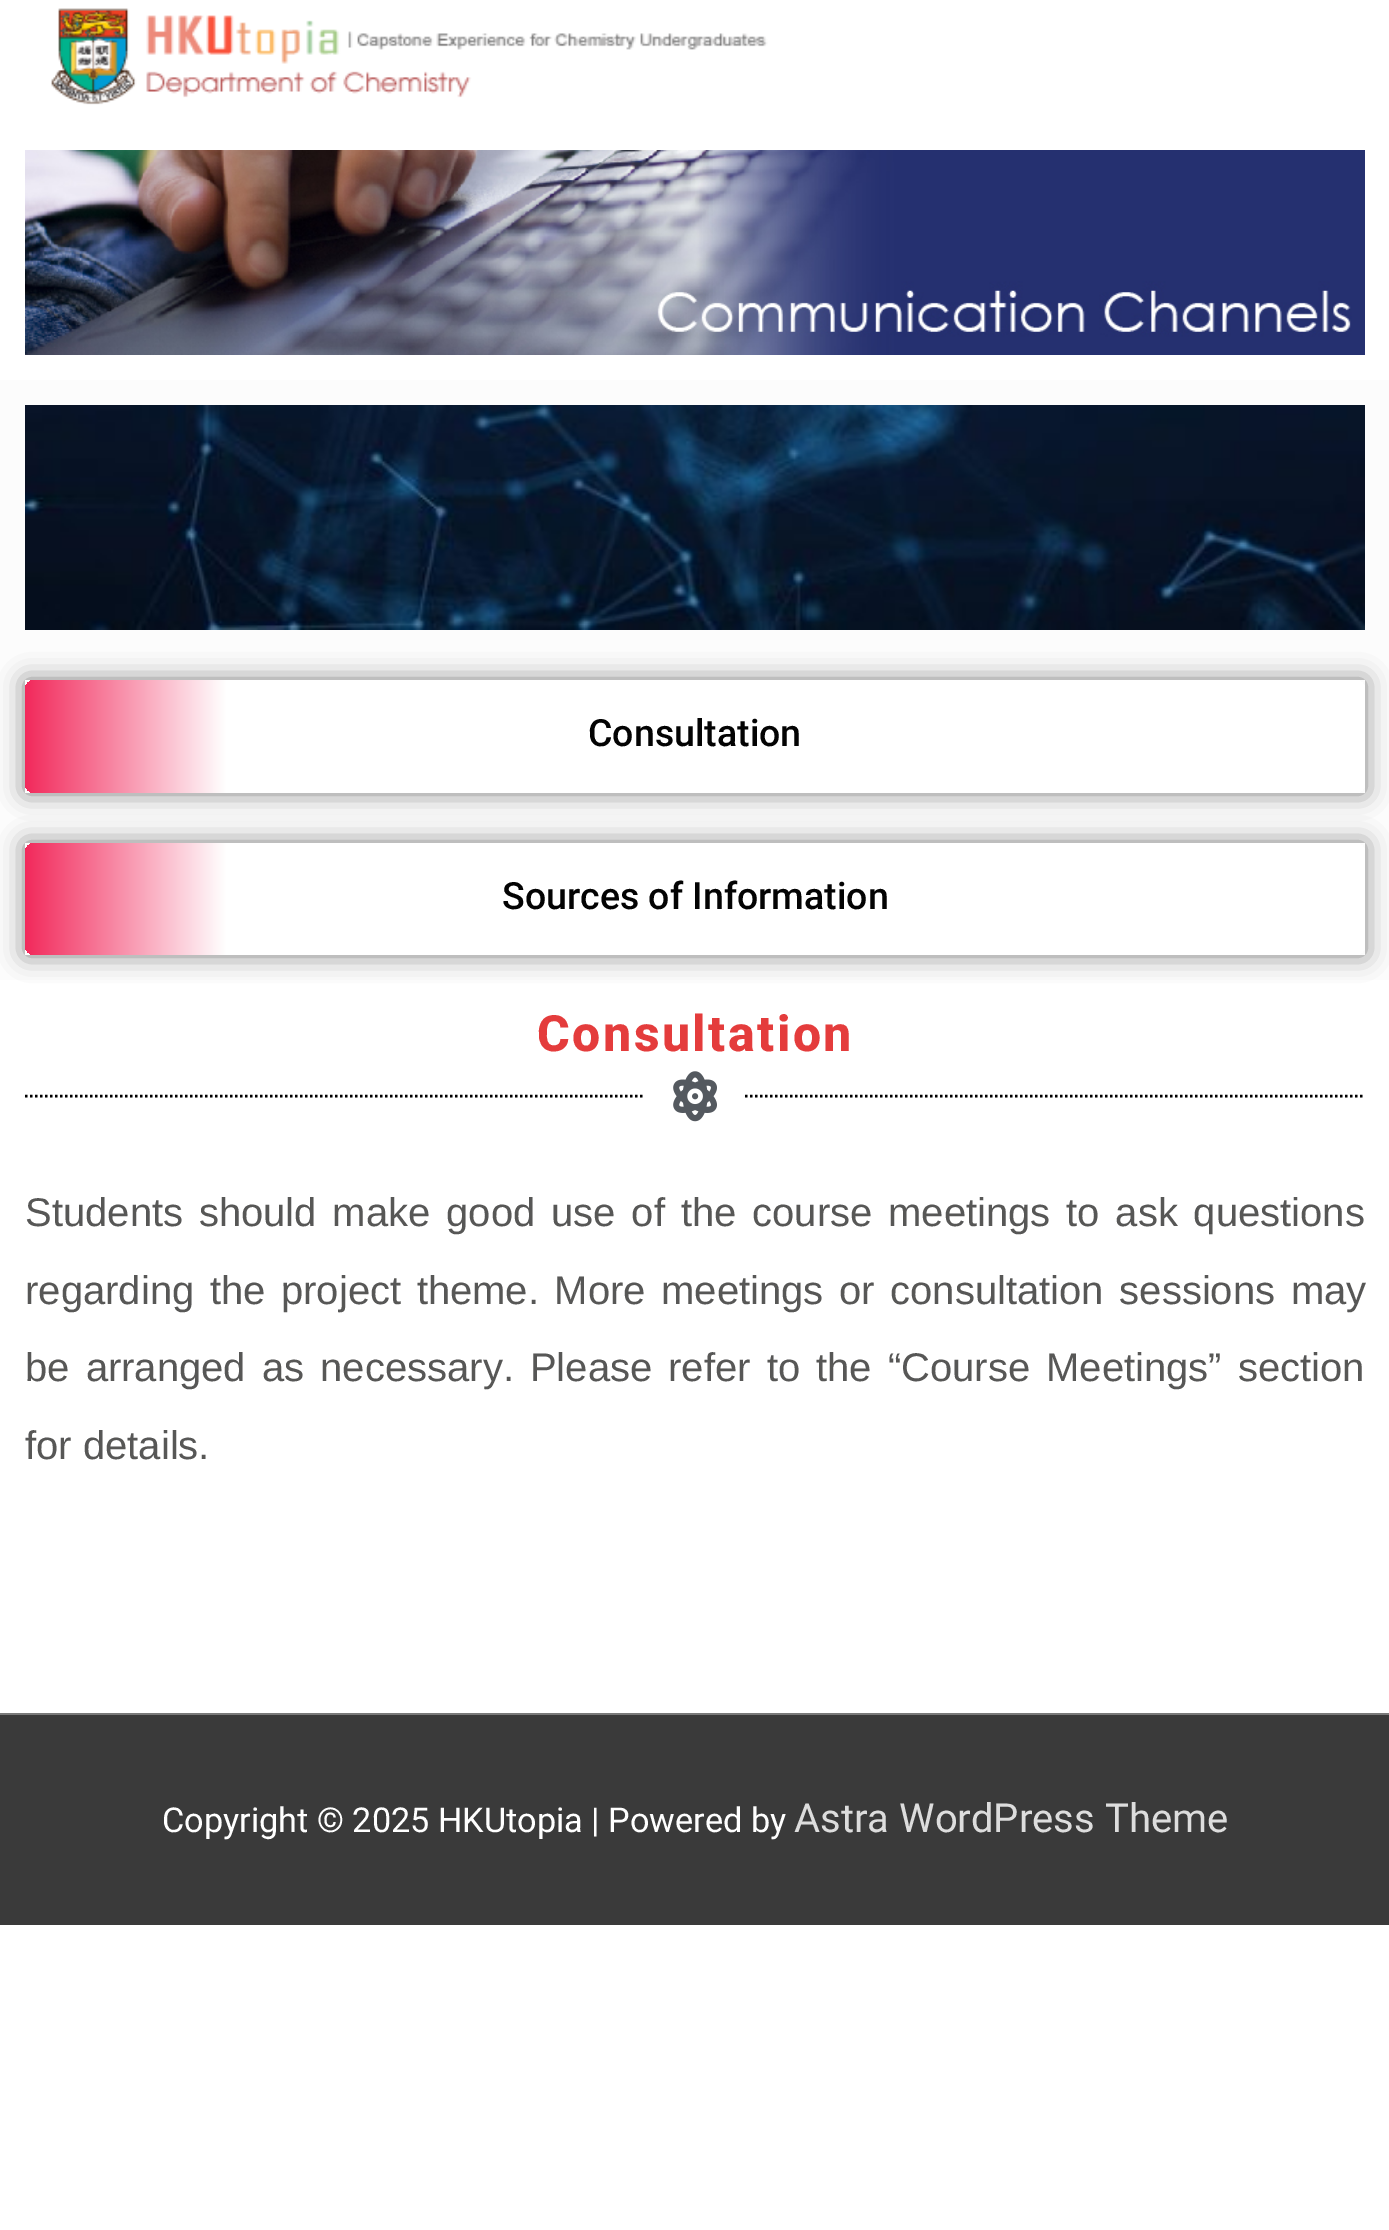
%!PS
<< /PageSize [1389 2230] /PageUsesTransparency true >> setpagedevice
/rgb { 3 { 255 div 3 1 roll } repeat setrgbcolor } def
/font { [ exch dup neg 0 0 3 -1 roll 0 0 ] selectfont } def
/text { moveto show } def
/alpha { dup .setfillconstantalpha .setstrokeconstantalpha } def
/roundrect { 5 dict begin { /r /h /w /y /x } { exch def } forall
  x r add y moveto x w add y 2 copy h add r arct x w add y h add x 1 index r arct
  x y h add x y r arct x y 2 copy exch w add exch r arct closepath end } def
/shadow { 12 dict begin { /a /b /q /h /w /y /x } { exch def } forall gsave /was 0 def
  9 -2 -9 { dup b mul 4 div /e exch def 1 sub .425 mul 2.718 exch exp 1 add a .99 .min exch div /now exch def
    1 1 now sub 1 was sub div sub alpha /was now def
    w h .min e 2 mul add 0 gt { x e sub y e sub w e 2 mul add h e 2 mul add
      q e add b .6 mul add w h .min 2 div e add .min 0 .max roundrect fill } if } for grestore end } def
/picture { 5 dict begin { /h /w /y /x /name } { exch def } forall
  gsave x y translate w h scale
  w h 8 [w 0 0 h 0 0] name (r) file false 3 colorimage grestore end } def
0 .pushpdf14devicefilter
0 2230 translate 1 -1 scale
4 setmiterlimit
255 255 255 rgb
0 0 1389 2230 rectfill
(img_01.rgb) 51 8 717 97 picture
(img_02.rgb) 25 150 1340 205 picture
252 252 252 rgb
0 380 1389 600 rectfill
(img_03.rgb) 25 405 1340 225 picture
gsave
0 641 moveto 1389 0 rlineto 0 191 rlineto -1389 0 rlineto closepath 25 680 moveto 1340 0 rlineto 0 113 rlineto -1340 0 rlineto closepath eoclip newpath
0 0 0 rgb
25 680 1340 113 0 12.5 0.5 shadow
grestore
gsave 25 680 1340 113 10 roundrect clip newpath
<< /ShadingType 2 /ColorSpace /DeviceRGB /Coords [25 736 1365 736] /Extend [true true] /Function << /FunctionType 3 /Domain [0 1] /Functions [<< /FunctionType 2 /Domain [0 1] /C0 [0.949 0.161 0.357] /C1 [1 1 1] /N 1 >> << /FunctionType 2 /Domain [0 1] /C0 [1 1 1] /C1 [1 1 1] /N 1 >>] /Bounds [0.15] /Encode [0 1 0 1] >> >> shfill grestore
gsave
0 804 moveto 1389 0 rlineto 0 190 rlineto -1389 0 rlineto closepath 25 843 moveto 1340 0 rlineto 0 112 rlineto -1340 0 rlineto closepath eoclip newpath
0 0 0 rgb
25 843 1340 112 0 12.5 0.5 shadow
grestore
gsave 25 843 1340 112 10 roundrect clip newpath
<< /ShadingType 2 /ColorSpace /DeviceRGB /Coords [25 899 1365 899] /Extend [true true] /Function << /FunctionType 3 /Domain [0 1] /Functions [<< /FunctionType 2 /Domain [0 1] /C0 [0.949 0.161 0.357] /C1 [1 1 1] /N 1 >> << /FunctionType 2 /Domain [0 1] /C0 [1 1 1] /C1 [1 1 1] /N 1 >>] /Bounds [0.15] /Encode [0 1 0 1] >> >> shfill grestore
0 0 0 rgb
2.5 setlinewidth
[2.5 2.5] 0 setdash
25 1096 moveto 620 0 rlineto stroke
(img_04.rgb) 673 1071 44 51 picture
745 1096 moveto 620 0 rlineto stroke
122 122 122 rgb
0 1713 1389 2 rectfill
58 58 58 rgb
0 1715 1389 210 rectfill
/Roboto-Medium 37.5 font
3 3 3 rgb
(Consultation) 588 746 text
(Sources of Information) 502 909 text
/Roboto-ExtraBold 50 font
228 60 60 rgb
537 1051 moveto 2.5 0 (Consultation) ashow
/LiberationSans-Regular 40 font
87 87 86 rgb
25 1226 moveto 4.75 0 32 (Students should make good use of the course meetings to ask questions) widthshow
25 1304 moveto 4.5 0 32 (regarding the project theme. More meetings or consultation sessions may) widthshow
25 1381 moveto 5 0 32 (be arranged as necessary. Please refer to the “Course Meetings” section) widthshow
(for details.) 25 1459 text
/Roboto-Regular 34.25 font
255 255 255 rgb
(Copyright © 2025 HKUtopia | Powered by) 162 1832 text
/Roboto-Regular 40 font
221 221 221 rgb
(Astra WordPress Theme) 794 1832 text
.poppdf14devicefilter showpage
